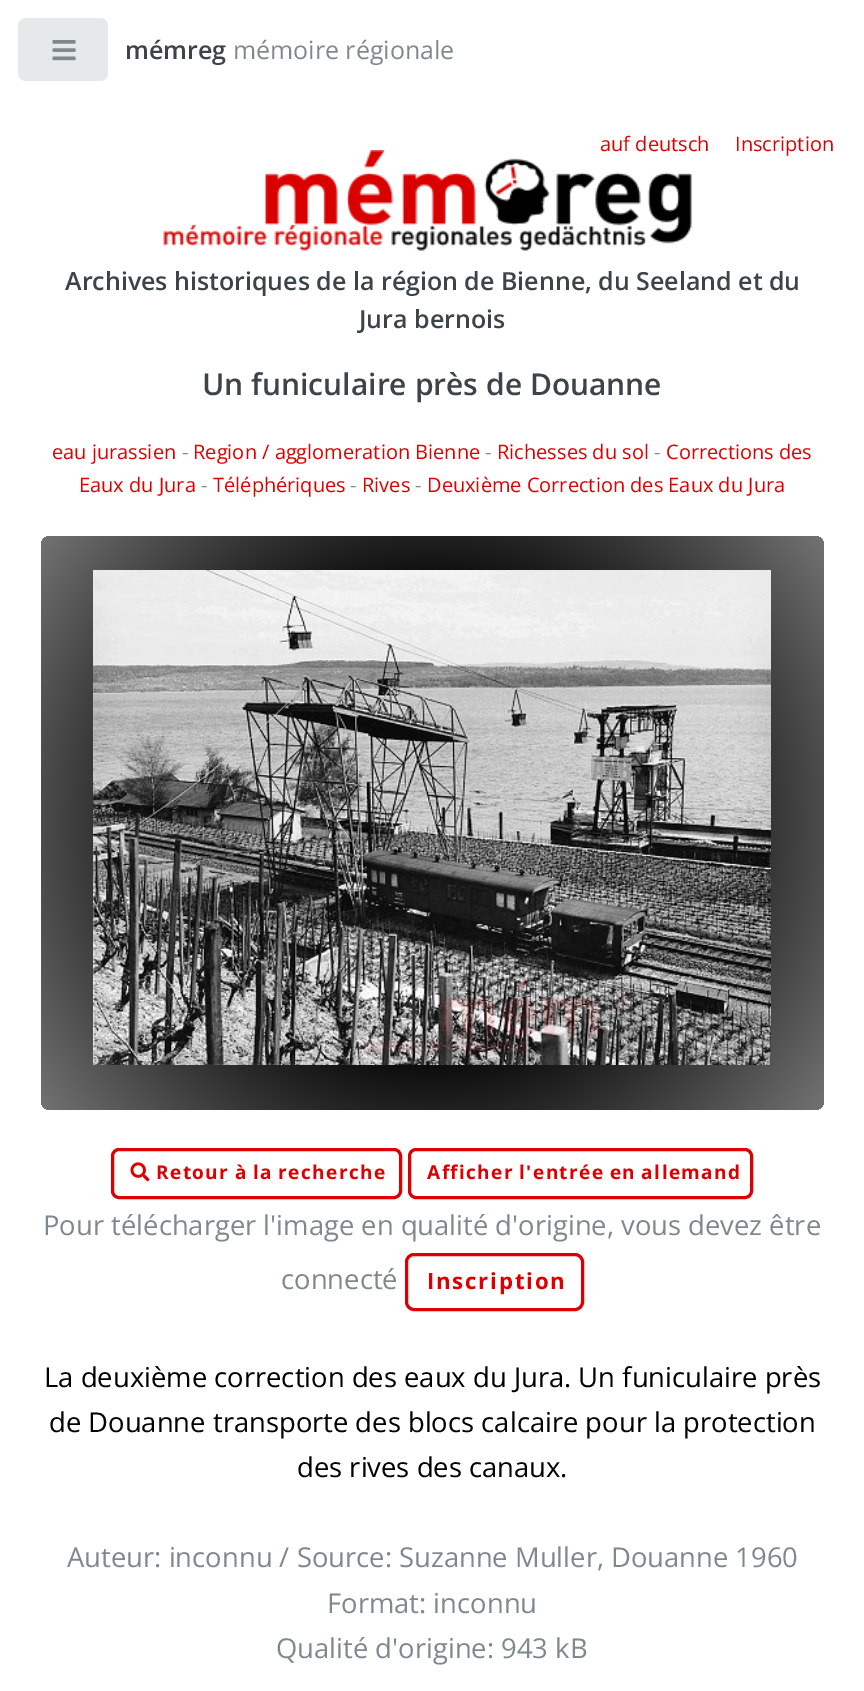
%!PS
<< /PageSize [864 1691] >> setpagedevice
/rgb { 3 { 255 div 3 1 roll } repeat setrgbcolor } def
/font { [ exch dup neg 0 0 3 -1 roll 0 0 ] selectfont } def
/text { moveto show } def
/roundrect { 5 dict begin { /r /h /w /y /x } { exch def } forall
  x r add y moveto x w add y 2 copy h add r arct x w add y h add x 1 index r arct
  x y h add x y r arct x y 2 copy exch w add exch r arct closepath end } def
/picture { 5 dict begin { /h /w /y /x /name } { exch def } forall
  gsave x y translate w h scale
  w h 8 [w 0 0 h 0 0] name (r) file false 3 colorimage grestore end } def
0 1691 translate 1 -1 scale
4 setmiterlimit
255 255 255 rgb
0 0 864 1691 rectfill
230 233 233 rgb
18 18 90 63 8 roundrect fill
(img_01.rgb) 52 40 24 21 picture
(img_02.rgb) 163 150 529 101 picture
gsave 41 536 783 574 9 roundrect clip newpath 432 823 translate 486 486 scale
<< /ShadingType 3 /ColorSpace /DeviceRGB /Coords [0 0 0 0 0 1] /Extend [true true] /Function << /FunctionType 3 /Domain [0 1] /Functions [<< /FunctionType 2 /Domain [0 1] /C0 [0 0 0] /C1 [0 0 0] /N 1 >> << /FunctionType 2 /Domain [0 1] /C0 [0 0 0] /C1 [0.451 0.451 0.451] /N 1 >>] /Bounds [0.43] /Encode [0 1 0 1] >> >> shfill grestore
(img_03.rgb) 93 570 678 495 picture
222 0 0 rgb
3 setlinewidth
112.5 1149.5 288 48 6.5 roundrect stroke
(img_04.rgb) 130 1162 20 20 picture
409.5 1149.5 342 48 6.5 roundrect stroke
406.5 1254.5 176 55 7.5 roundrect stroke
/OpenSans-SemiBold 25 font
61 68 73 rgb
(mémreg) 125 59 text
/OpenSans-Regular 25 font
127 136 143 rgb
(mémoire régionale) 233 59 text
/OpenSans-Regular 20 font
222 0 0 rgb
(auf deutsch) 600 151 text
(Inscription) 735 151 text
/OpenSans-SemiBold 25 font
61 68 73 rgb
(Archives historiques de la région de Bienne, du Seeland et du) 65 290 text
(Jura bernois) 359 328 text
/OpenSans-SemiBold 30 font
(Un funiculaire près de Douanne) 202 395 text
/OpenSans-Regular 20 font
222 0 0 rgb
(eau jurassien) 52 459 text
127 136 143 rgb
(-) 182 459 text
222 0 0 rgb
(Region / agglomeration Bienne) 193 459 text
127 136 143 rgb
(-) 485 459 text
222 0 0 rgb
(Richesses du sol) 497 459 text
127 136 143 rgb
(-) 654 459 text
222 0 0 rgb
(Corrections des) 666 459 text
(Eaux du Jura) 79 492 text
127 136 143 rgb
(-) 201 492 text
222 0 0 rgb
(Téléphériques) 213 492 text
127 136 143 rgb
(-) 350 492 text
222 0 0 rgb
(Rives) 362 492 text
127 136 143 rgb
(-) 415 492 text
222 0 0 rgb
(Deuxième Correction des Eaux du Jura) 427 492 text
/OpenSans-Bold 19 font
156 1179 moveto -1 0 32 1.4 0 (Retour à la recherche) awidthshow
427 1179 moveto -1 0 32 1.4 0 (Afficher l'entrée en allemand) awidthshow
/OpenSans-Regular 27.4 font
127 136 143 rgb
(Pour télécharger l'image en qualité d'origine, vous devez être) 43 1235 text
(connecté) 281 1289 text
/OpenSans-Bold 22.25 font
222 0 0 rgb
427 1289 moveto 1.75 0 (Inscription) ashow
/OpenSans-Regular 27.4 font
0 0 0 rgb
(La deuxième correction des eaux du Jura. Un funiculaire près) 44 1387 text
(de Douanne transporte des blocs calcaire pour la protection) 49 1432 text
(des rives des canaux.) 297 1477 text
127 136 143 rgb
(Auteur: inconnu / Source: Suzanne Muller, Douanne 1960) 67 1567 text
(Format: inconnu) 327 1613 text
(Qualité d'origine: 943 kB) 276 1658 text
showpage
